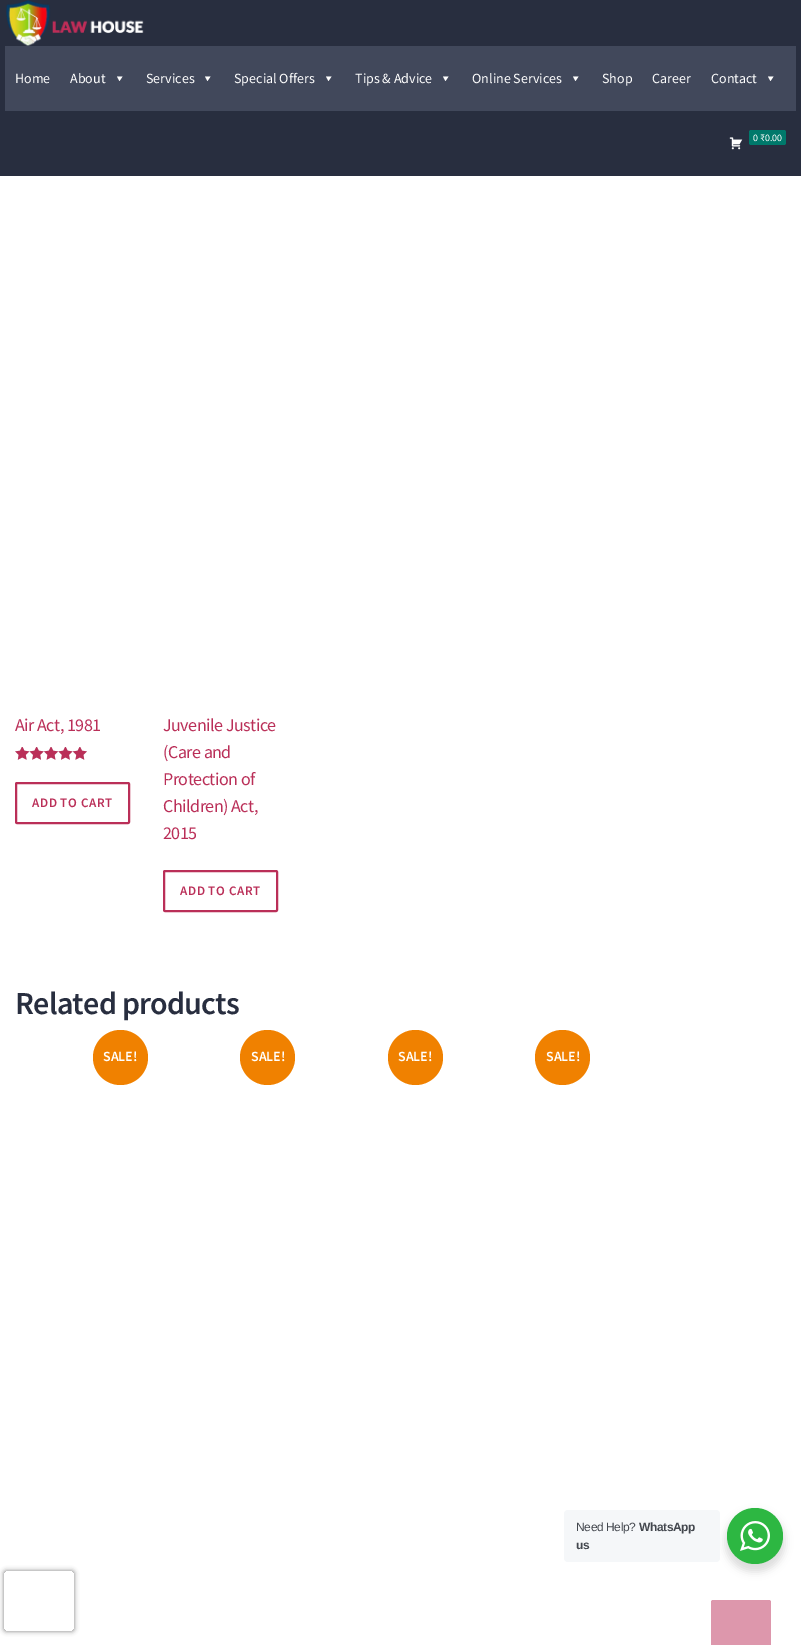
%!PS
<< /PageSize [801 1645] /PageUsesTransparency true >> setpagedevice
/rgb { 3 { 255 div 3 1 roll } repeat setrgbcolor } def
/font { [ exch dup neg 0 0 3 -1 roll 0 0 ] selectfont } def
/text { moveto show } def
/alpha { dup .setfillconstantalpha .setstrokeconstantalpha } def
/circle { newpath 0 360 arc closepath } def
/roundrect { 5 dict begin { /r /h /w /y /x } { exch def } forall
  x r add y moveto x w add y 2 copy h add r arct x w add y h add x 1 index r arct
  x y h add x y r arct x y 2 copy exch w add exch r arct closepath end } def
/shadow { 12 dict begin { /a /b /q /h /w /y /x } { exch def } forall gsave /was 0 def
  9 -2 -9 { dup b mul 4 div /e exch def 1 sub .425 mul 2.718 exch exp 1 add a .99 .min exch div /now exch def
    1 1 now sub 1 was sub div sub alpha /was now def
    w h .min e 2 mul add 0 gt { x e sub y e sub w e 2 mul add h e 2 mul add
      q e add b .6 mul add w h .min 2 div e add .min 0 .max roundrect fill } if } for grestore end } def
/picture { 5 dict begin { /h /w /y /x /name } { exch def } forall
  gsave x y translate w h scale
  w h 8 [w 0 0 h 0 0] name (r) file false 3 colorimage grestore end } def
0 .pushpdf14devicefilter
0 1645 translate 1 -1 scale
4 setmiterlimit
255 255 255 rgb
0 0 801 1645 rectfill
40 46 63 rgb
0 0 801 176 rectfill
(img_01.rgb) 6 0 138 46 picture
65 72 91 rgb
5 46 791 65 rectfill
255 255 255 rgb
122.5 76.5 moveto -3 4.5 rlineto -2.5 -4.5 rlineto closepath fill
210.5 76.5 moveto -3 4.5 rlineto -2.5 -4.5 rlineto closepath fill
331.5 76.5 moveto -3 4.5 rlineto -2.5 -4.5 rlineto closepath fill
448.5 76.5 moveto -3 4.5 rlineto -2.5 -4.5 rlineto closepath fill
578.5 76.5 moveto -3 4.5 rlineto -2.5 -4.5 rlineto closepath fill
773.5 76.5 moveto -3 4.5 rlineto -2.5 -4.5 rlineto closepath fill
(img_02.rgb) 729 137 14 13 picture
0 121 107 rgb
751 130 moveto 7 0 rlineto 0 15 rlineto -7 0 rlineto -1 0 -2 -1 -2 -2 rcurveto 0 -11 rlineto 0 -1 1 -2 2 -2 rcurveto closepath fill
758 130 2 15 rectfill
760 130 moveto 24 0 rlineto 1 0 2 1 2 2 rcurveto 0 11 rlineto 0 1 -1 2 -2 2 rcurveto -24 0 rlineto closepath fill
(img_03.rgb) 15 747 72 13 picture
(img_04.rgb) 15 747 72 13 picture
186 47 88 rgb
2 setlinewidth
16 783 113 40 1 roundrect stroke
164 871 113 40 1 roundrect stroke
240 129 0 rgb
120.5 1057.5 27.5 circle fill
267.5 1057.5 27.5 circle fill
415.5 1057.5 27.5 circle fill
562.5 1057.5 27.5 circle fill
0 0 0 rgb
725 1512 60 60 30 4 0.14 shadow
245 247 249 rgb
564 1510 156 52 4 roundrect fill
45 183 66 rgb
755 1536 28 circle fill
(img_05.rgb) 740 1521 30 30 picture
gsave
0 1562 moveto 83 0 rlineto 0 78 rlineto -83 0 rlineto closepath 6 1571 moveto 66 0 rlineto 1 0 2 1 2 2 rcurveto 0 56 rlineto 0 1 -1 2 -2 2 rcurveto -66 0 rlineto -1 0 -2 -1 -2 -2 rcurveto 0 -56 rlineto 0 -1 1 -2 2 -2 rcurveto closepath eoclip newpath
128 128 128 rgb
4 1571 70 60 2 2.5 1 shadow
grestore
221 151 172 rgb
713 1600 moveto 56 0 rlineto 1 0 2 1 2 2 rcurveto 0 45 rlineto -60 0 rlineto 0 -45 rlineto 0 -1 1 -2 2 -2 rcurveto closepath fill
/SourceSansPro-Regular 14 font
255 255 255 rgb
(Home) 15 83 text
(About) 70 83 text
(Services) 146 83 text
(Special Offers) 234 83 text
(Tips & Advice) 355 83 text
(Online Services) 472 83 text
(Shop) 602 83 text
(Career) 652 83 text
(Contact) 711 83 text
/SourceSansPro-Regular 10 font
(0 ₹0.00) 753 141 text
/SourceSansPro-Regular 18 font
186 47 88 rgb
15 731 moveto -0.5 0 (Air Act, 1981) ashow
/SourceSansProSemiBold-SemiBold 13 font
32 807 moveto 0.6 0 (ADD TO CART) ashow
/SourceSansPro-Regular 18 font
163 731 moveto -0.5 0 (Juvenile Justice) ashow
163 758 moveto -0.5 0 (\(Care and) ashow
163 785 moveto -0.5 0 (Protection of) ashow
163 812 moveto -0.5 0 (Children\) Act,) ashow
163 839 moveto -0.5 0 (2015) ashow
/SourceSansProSemiBold-SemiBold 13 font
180 895 moveto 0.6 0 (ADD TO CART) ashow
/SourceSansProSemiBold-SemiBold 32 font
40 46 63 rgb
15 1014 moveto -0.75 0 (Related products) ashow
/SourceSansProSemiBold-SemiBold 14 font
255 255 255 rgb
(SALE!) 103 1061 text
(SALE!) 251 1061 text
(SALE!) 398 1061 text
(SALE!) 546 1061 text
/LiberationSans-Regular 12 font
67 71 78 rgb
576 1531 moveto -0.4 0 (Need Help?) ashow
/LiberationSans-Bold 12 font
639 1531 moveto -0.4 0 (WhatsApp) ashow
576 1549 moveto -0.4 0 (us) ashow
.poppdf14devicefilter showpage
